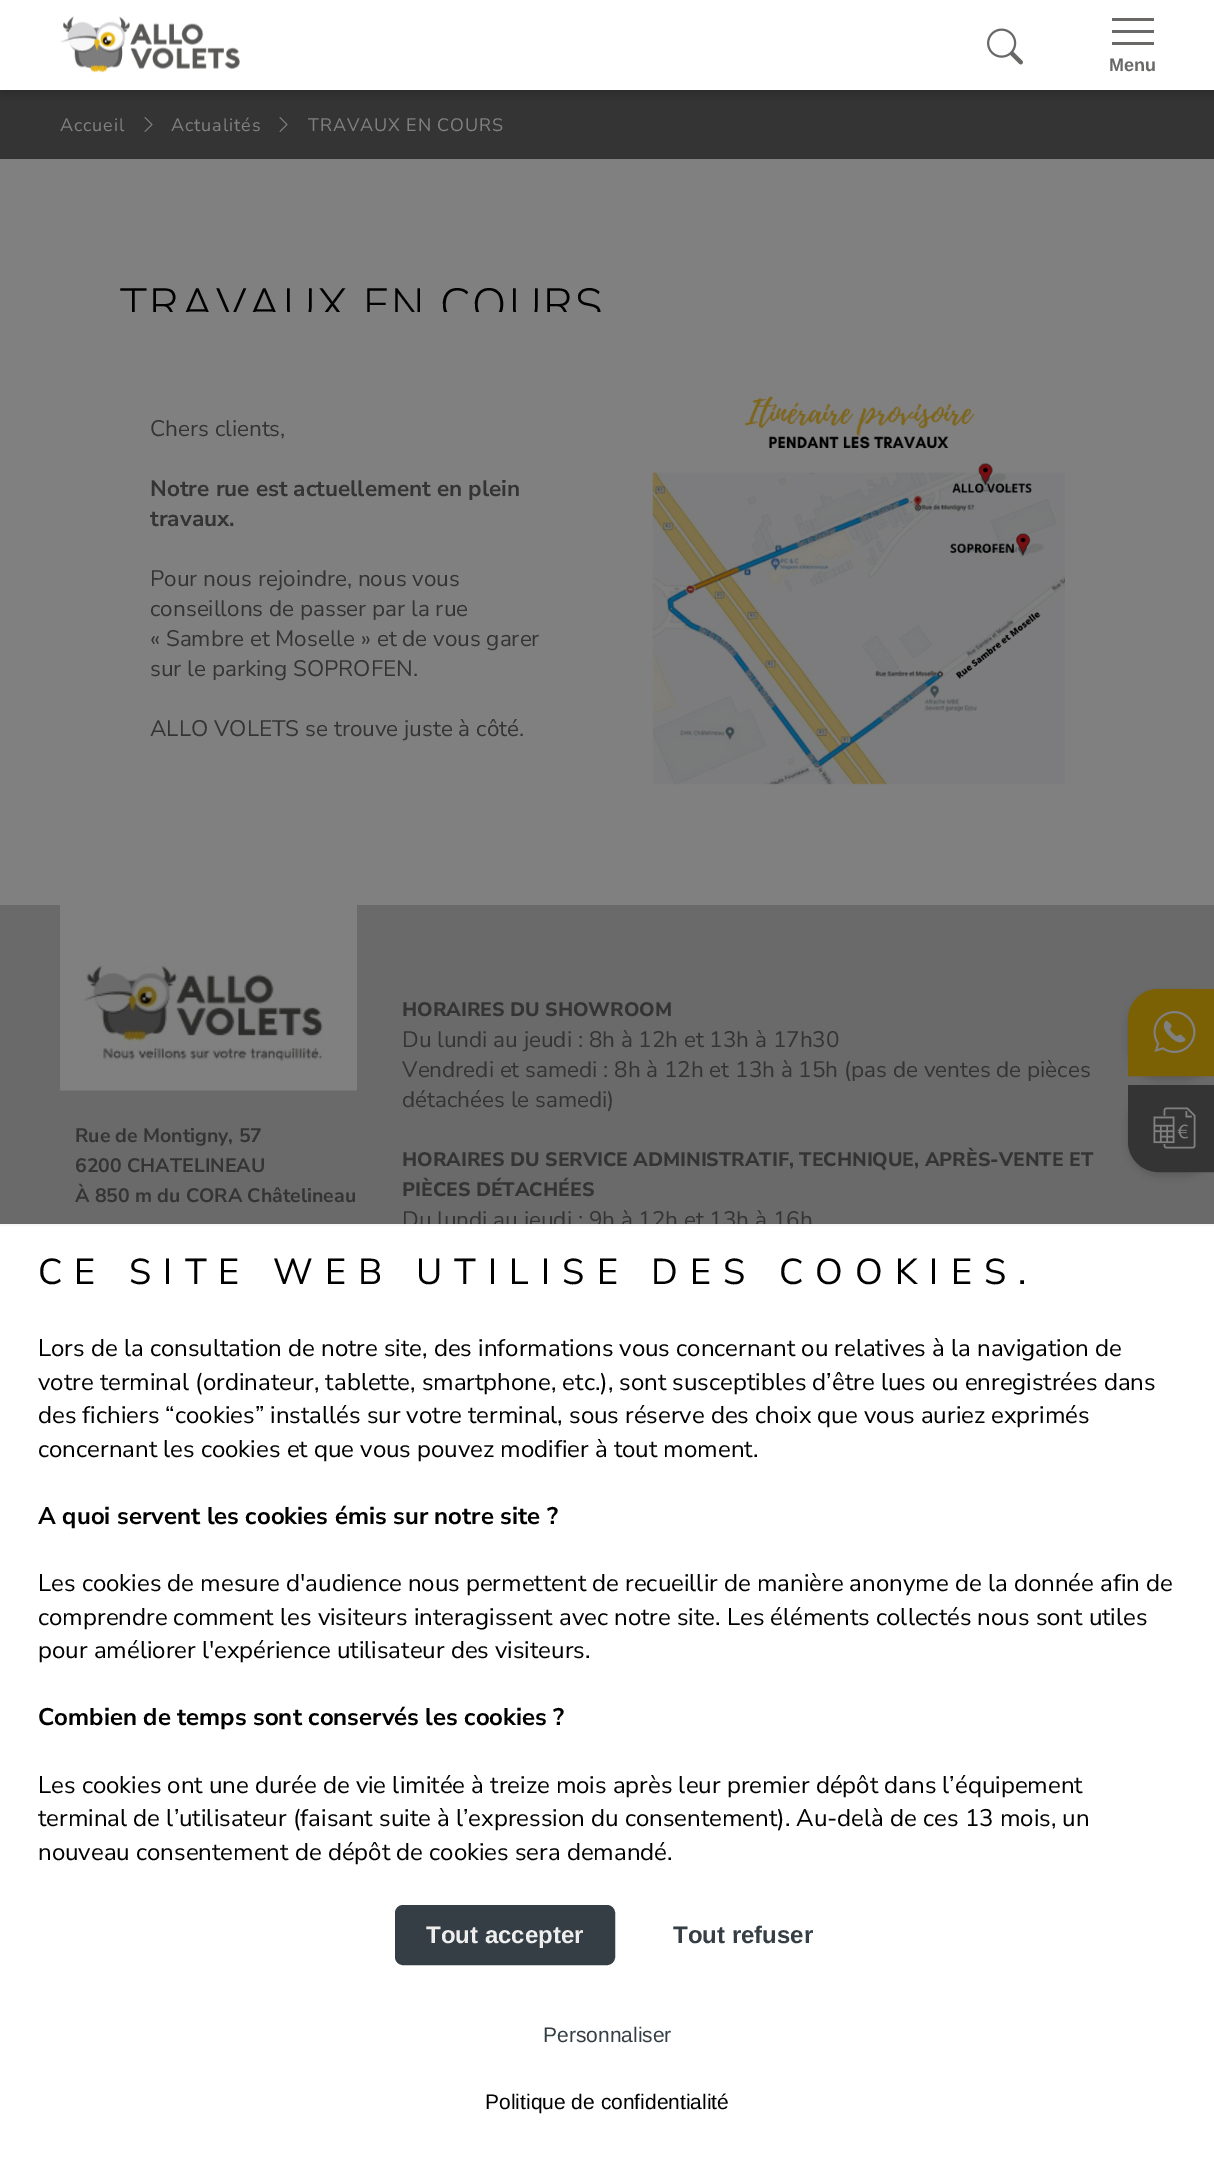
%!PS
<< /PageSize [1214 2168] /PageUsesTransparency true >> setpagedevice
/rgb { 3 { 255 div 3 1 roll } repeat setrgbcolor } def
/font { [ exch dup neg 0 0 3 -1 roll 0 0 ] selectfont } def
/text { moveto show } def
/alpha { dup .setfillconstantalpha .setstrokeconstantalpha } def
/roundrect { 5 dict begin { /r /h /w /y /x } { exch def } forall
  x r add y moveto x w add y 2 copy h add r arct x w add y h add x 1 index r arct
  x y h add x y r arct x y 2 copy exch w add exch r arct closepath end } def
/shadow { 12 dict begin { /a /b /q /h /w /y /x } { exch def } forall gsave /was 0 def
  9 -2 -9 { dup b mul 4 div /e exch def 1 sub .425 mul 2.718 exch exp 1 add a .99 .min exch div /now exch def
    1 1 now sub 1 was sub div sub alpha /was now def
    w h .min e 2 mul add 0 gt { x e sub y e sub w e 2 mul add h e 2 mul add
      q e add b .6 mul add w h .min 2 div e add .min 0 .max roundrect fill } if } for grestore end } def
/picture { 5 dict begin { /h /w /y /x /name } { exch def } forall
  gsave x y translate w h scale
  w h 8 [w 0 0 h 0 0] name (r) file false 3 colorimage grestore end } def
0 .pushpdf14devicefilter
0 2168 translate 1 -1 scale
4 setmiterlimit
128 128 128 rgb
0 0 1214 2168 rectfill
53 52 52 rgb
0 90 1214 69 rectfill
0 0 0 rgb
0 5 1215 90 0 4.5 0.16 shadow
255 255 255 rgb
0 0 1214 90 rectfill
(img_01.rgb) 61 16 179 57 picture
(img_02.rgb) 987 28 36 37 picture
105 104 103 rgb
1112 18 42 3 rectfill
1112 30 42 3 rectfill
1112 42 42 3 rectfill
(img_03.rgb) 144 117 9 15 picture
(img_03.rgb) 279 117 9 15 picture
(img_04.rgb) 652 396 413 389 picture
106 106 106 rgb
0 905 1214 319 rectfill
0 0 0 rgb
1128 993 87 87 30 4.5 0.16 shadow
124 96 4 rgb
1158 990.5 moveto 55.5 0 rlineto 0 84 rlineto -84 0 rlineto 0 -55.5 rlineto 0 -15.5 13 -28.5 28.5 -28.5 rcurveto closepath gsave fill grestore
3 setlinewidth
stroke
(img_05.rgb) 1153 1011 43 42 picture
0 0 0 rgb
1128 1089 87 87 30 4.5 0.16 shadow
53 52 52 rgb
1129.5 1086.5 moveto 84 0 rlineto 0 84 rlineto -55.5 0 rlineto -15.5 0 -28.5 -13 -28.5 -28.5 rcurveto closepath gsave fill grestore
stroke
(img_06.rgb) 1153 1107 43 42 picture
(img_07.rgb) 60 905 297 186 picture
/LiberationSans-Bold 18 font
105 104 103 rgb
(Menu) 1109 71 text
/NunitoSans-Regular 18 font
128 128 128 rgb
60 131 moveto 0.9 0 (Accueil) ashow
171 131 moveto 0.9 0 (Actualités) ashow
308 131 moveto 0.9 0 (TRAVAUX EN COURS) ashow
/NunitoSans-Light 45 font
0 0 0 rgb
120 320 moveto 2.25 0 (TRAVAUX EN COURS) ashow
128 128 128 rgb
131 312 470 9 rectfill
/NunitoSans-Regular 22.5 font
53 52 52 rgb
(Chers clients,) 150 436 text
/NunitoSans-Bold 22.5 font
(Notre rue est actuellement en plein) 150 496 text
(travaux.) 150 526 text
/NunitoSans-Regular 22.5 font
(Pour nous rejoindre, nous vous) 150 586 text
(conseillons de passer par la rue) 150 616 text
(« Sambre et Moselle » et de vous garer) 150 646 text
(sur le parking SOPROFEN.) 150 676 text
(ALLO VOLETS se trouve juste à côté.) 150 736 text
/NunitoSans-Bold 19.5 font
(Rue de Montigny, 57) 75 1142 text
(6200 CHATELINEAU) 75 1172 text
(À 850 m du CORA Châtelineau) 75 1202 text
/NunitoSans-ExtraBold 19.5 font
(HORAIRES DU SHOWROOM) 402 1016 text
/NunitoSans-Regular 22.5 font
(Du lundi au jeudi : 8h à 12h et 13h à 17h30) 402 1047 text
(Vendredi et samedi : 8h à 12h et 13h à 15h \(pas de ventes de pièces) 402 1077 text
(détachées le samedi\)) 402 1107 text
/NunitoSans-ExtraBold 19.5 font
(HORAIRES DU SERVICE ADMINISTRATIF, TECHNIQUE, APRÈS-VENTE ET) 402 1166 text
(PIÈCES DÉTACHÉES) 402 1196 text
/NunitoSans-Regular 22.5 font
(Du lundi au jeudi : 9h à 12h et 13h à 16h) 402 1227 text
255 255 255 rgb
0 1226 1214 942 rectfill
247 247 247 rgb
0 1224 1214 2 rectfill
/NunitoSans-Regular 36 font
0 0 0 rgb
38 1284 moveto 12.15 0 (CE SITE WEB UTILISE DES COOKIES.) ashow
/NunitoSans-Regular 24 font
(Lors de la consultation de notre site, des informations vous concernant ou relatives à la navigation de) 38 1356 text
(votre terminal \(ordinateur, tablette, smartphone, etc.\), sont susceptibles d’être lues ou enregistrées dans) 38 1390 text
(des fichiers “cookies” installés sur votre terminal, sous réserve des choix que vous auriez exprimés) 38 1423 text
(concernant les cookies et que vous pouvez modifier à tout moment.) 38 1457 text
/NunitoSans-Bold 24 font
(A quoi servent les cookies émis sur notre site ?) 38 1524 text
/NunitoSans-Regular 24 font
(Les cookies de mesure d'audience nous permettent de recueillir de manière anonyme de la donnée afin de) 38 1591 text
(comprendre comment les visiteurs interagissent avec notre site. Les éléments collectés nous sont utiles) 38 1625 text
(pour améliorer l'expérience utilisateur des visiteurs.) 38 1658 text
/NunitoSans-Bold 24 font
(Combien de temps sont conservés les cookies ?) 38 1725 text
/NunitoSans-Regular 24 font
(Les cookies ont une durée de vie limitée à treize mois après leur premier dépôt dans l’équipement) 38 1793 text
(terminal de l’utilisateur \(faisant suite à l’expression du consentement\). Au-delà de ces 13 mois, un) 38 1826 text
(nouveau consentement de dépôt de cookies sera demandé.) 38 1860 text
53 62 68 rgb
396 1906 218 58 7 roundrect gsave fill grestore
2 setlinewidth
stroke
/LiberationSans-Bold 24 font
238 238 238 rgb
(Tout accepter) 426 1943 text
53 62 68 rgb
(Tout refuser) 673 1943 text
/LiberationSans-Regular 21 font
(Personnaliser) 543 2042 text
0 0 0 rgb
(Politique de confidentialité) 485 2109 text
.poppdf14devicefilter showpage
